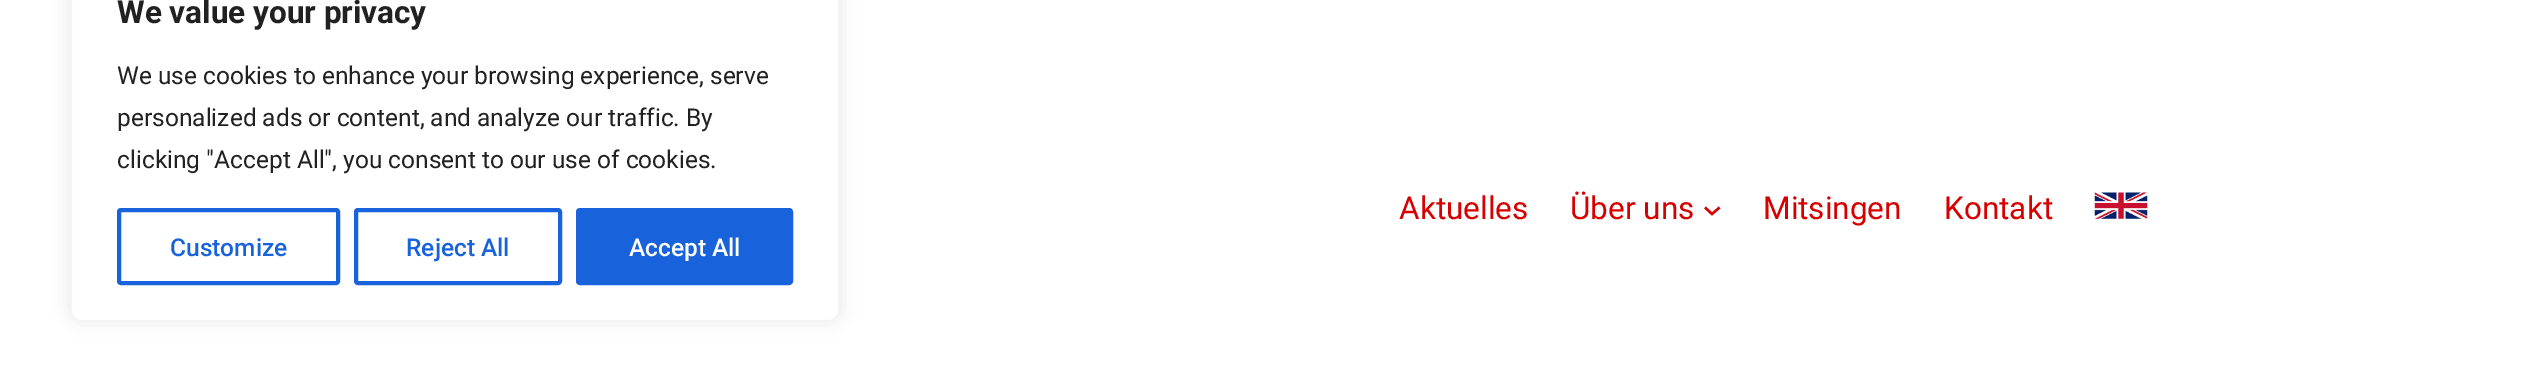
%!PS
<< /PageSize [2543 391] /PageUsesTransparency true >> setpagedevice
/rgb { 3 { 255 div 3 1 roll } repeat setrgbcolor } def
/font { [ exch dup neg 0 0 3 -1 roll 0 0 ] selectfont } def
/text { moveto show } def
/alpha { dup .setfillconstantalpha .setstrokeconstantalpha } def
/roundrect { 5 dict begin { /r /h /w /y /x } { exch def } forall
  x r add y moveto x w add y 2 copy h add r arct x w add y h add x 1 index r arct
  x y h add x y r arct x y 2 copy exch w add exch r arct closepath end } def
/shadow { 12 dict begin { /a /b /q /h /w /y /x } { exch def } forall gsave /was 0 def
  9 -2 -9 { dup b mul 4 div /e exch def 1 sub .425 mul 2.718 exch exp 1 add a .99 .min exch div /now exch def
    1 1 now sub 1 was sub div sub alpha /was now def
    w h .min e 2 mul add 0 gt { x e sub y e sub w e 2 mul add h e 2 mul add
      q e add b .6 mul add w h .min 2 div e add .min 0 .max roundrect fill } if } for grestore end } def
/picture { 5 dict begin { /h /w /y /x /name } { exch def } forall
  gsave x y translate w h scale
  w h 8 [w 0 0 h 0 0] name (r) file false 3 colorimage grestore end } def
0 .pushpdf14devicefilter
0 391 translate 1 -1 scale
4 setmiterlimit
255 255 255 rgb
0 0 2543 391 rectfill
172 171 171 rgb
70 -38 770 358 11 9 0.3 shadow
255 255 255 rgb
71 -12 768 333 10 roundrect gsave fill grestore
244 244 244 rgb
2 setlinewidth
stroke
24 99 220 rgb
4 setlinewidth
119 210 219 73 2 roundrect stroke
356 210 204 73 2 roundrect stroke
578 210 213 73 2 roundrect gsave fill grestore
stroke
214 0 0 rgb
2.4 setlinewidth
1705 207.5 moveto 7 6.5 rlineto 7.5 -6.5 rlineto stroke
(img_01.rgb) 2094 192 54 27 picture
/Roboto-Bold 31.5 font
33 33 33 rgb
(We value your privacy) 117 23 text
/Roboto-Regular 24.5 font
(We use cookies to enhance your browsing experience, serve) 117 84 text
(personalized ads or content, and analyze our traffic. By) 117 126 text
(clicking "Accept All", you consent to our use of cookies.) 117 168 text
/Roboto-Medium 24.5 font
24 99 220 rgb
(Customize) 170 256 text
(Reject All) 406 256 text
255 255 255 rgb
(Accept All) 629 256 text
/Roboto-Regular 31.5 font
214 0 0 rgb
(Aktuelles) 1399 219 text
(Über uns) 1570 219 text
(Mitsingen) 1763 219 text
(Kontakt) 1944 219 text
.poppdf14devicefilter showpage
